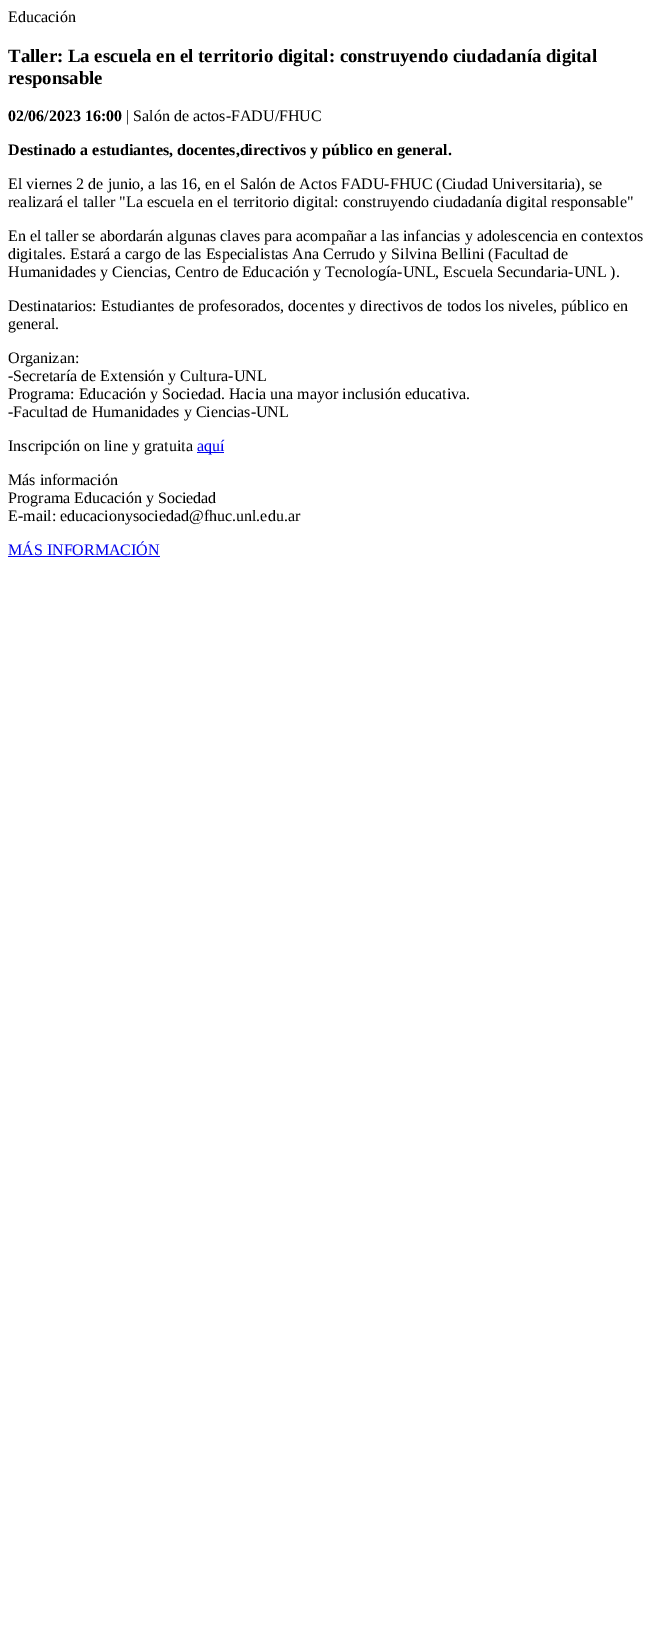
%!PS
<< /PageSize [655 1630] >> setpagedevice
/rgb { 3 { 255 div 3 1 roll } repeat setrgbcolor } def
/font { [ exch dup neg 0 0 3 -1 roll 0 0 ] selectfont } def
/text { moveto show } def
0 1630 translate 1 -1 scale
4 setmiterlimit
255 255 255 rgb
0 0 655 1630 rectfill
0 0 238 rgb
197 452 27 1 rectfill
8 556 152 1 rectfill
/LiberationSerif-Regular 16 font
0 0 0 rgb
(Educación) 8 22 text
/LiberationSerif-Bold 18.75 font
(Taller: La escuela en el territorio digital: construyendo ciudadanía digital) 8 62 text
(responsable) 8 84 text
/LiberationSerif-Bold 16 font
(02/06/2023 16:00) 8 121 text
/LiberationSerif-Regular 16 font
(| Salón de actos-FADU/FHUC) 126 121 text
/LiberationSerif-Bold 16 font
(Destinado a estudiantes, docentes,directivos y público en general.) 8 155 text
/LiberationSerif-Regular 16 font
(El viernes 2 de junio, a las 16, en el Salón de Actos FADU-FHUC \(Ciudad Universitaria\), se) 8 189 text
(realizará el taller "La escuela en el territorio digital: construyendo ciudadanía digital responsable") 8 207 text
(En el taller se abordarán algunas claves para acompañar a las infancias y adolescencia en contextos) 8 241 text
(digitales. Estará a cargo de las Especialistas Ana Cerrudo y Silvina Bellini \(Facultad de) 8 259 text
(Humanidades y Ciencias, Centro de Educación y Tecnología-UNL, Escuela Secundaria-UNL \).) 8 277 text
(Destinatarios: Estudiantes de profesorados, docentes y directivos de todos los niveles, público en) 8 311 text
(general.) 8 329 text
(Organizan:) 8 363 text
(-Secretaría de Extensión y Cultura-UNL) 8 381 text
(Programa: Educación y Sociedad. Hacia una mayor inclusión educativa.) 8 399 text
(-Facultad de Humanidades y Ciencias-UNL) 8 417 text
(Inscripción on line y gratuita) 8 451 text
0 0 238 rgb
(aquí) 197 451 text
0 0 0 rgb
(Más información) 8 485 text
(Programa Educación y Sociedad) 8 503 text
(E-mail: educacionysociedad@fhuc.unl.edu.ar) 8 521 text
0 0 238 rgb
(MÁS INFORMACIÓN) 8 555 text
showpage
